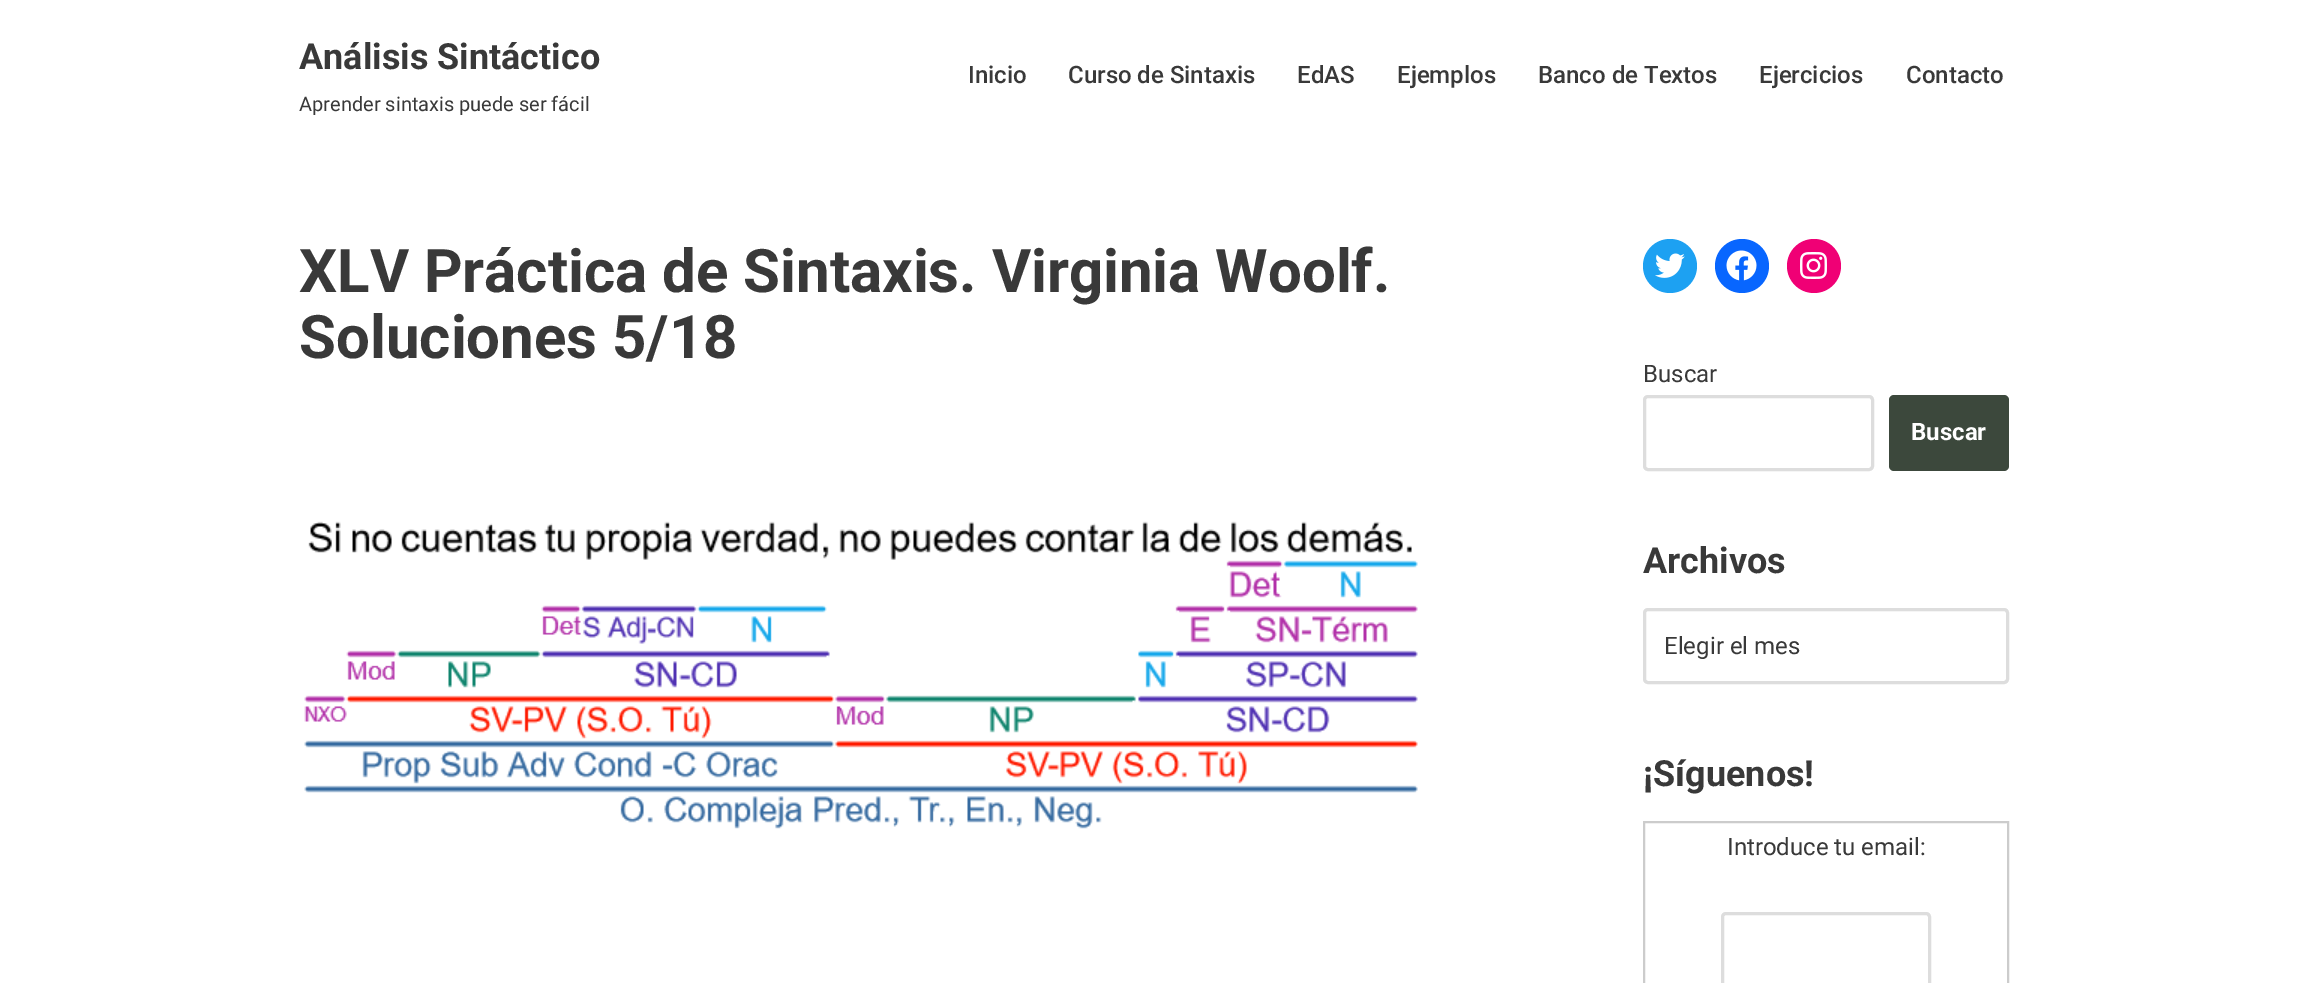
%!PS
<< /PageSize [2308 983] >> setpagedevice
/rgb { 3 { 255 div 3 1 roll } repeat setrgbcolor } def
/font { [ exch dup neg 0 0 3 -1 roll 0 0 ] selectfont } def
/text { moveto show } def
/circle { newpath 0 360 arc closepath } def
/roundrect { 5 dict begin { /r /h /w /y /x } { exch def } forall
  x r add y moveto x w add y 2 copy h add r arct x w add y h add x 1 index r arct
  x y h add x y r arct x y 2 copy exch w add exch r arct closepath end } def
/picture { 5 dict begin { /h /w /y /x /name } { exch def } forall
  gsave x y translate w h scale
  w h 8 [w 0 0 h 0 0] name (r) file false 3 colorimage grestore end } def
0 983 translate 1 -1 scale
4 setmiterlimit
255 255 255 rgb
0 0 2308 983 rectfill
(img_01.rgb) 304 521 1114 308 picture
29 161 242 rgb
1670 266 27 circle fill
(img_02.rgb) 1655 253 30 25 picture
8 102 255 rgb
1742 266 27 circle fill
(img_03.rgb) 1726 250 31 31 picture
240 0 117 rgb
1814 266 27 circle fill
(img_04.rgb) 1800 252 27 27 picture
221 221 221 rgb
3 setlinewidth
1644.5 396.5 228 73 3.5 roundrect stroke
60 72 60 rgb
1889 395 120 76 5 roundrect fill
221 221 221 rgb
1644.5 609.5 363 73 3.5 roundrect stroke
204 204 204 rgb
2 setlinewidth
1644 822 364 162 rectstroke
221 221 221 rgb
3 setlinewidth
1722.5 913.5 207 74 3.5 roundrect stroke
/Roboto-Bold 36 font
57 57 57 rgb
(Análisis Sintáctico) 299 69 text
/Roboto-Regular 20 font
(Aprender sintaxis puede ser fácil) 299 111 text
/Roboto-Medium 24 font
(Inicio) 968 83 text
(Curso de Sintaxis) 1068 83 text
(EdAS) 1297 83 text
(Ejemplos) 1397 83 text
(Banco de Textos) 1538 83 text
(Ejercicios) 1759 83 text
(Contacto) 1906 83 text
/Roboto-Bold 60 font
(XLV Práctica de Sintaxis. Virginia Woolf.) 299 292 text
(Soluciones 5/18) 299 358 text
/Roboto-Regular 24 font
(Buscar) 1643 382 text
/Roboto-Bold 24 font
255 255 255 rgb
(Buscar) 1911 440 text
/Roboto-Bold 36 font
57 57 57 rgb
(Archivos) 1643 573 text
/Roboto-Regular 24 font
(Elegir el mes) 1664 654 text
/Roboto-Bold 36 font
(¡Síguenos!) 1643 786 text
/Roboto-Regular 24 font
(Introduce tu email:) 1727 855 text
showpage
